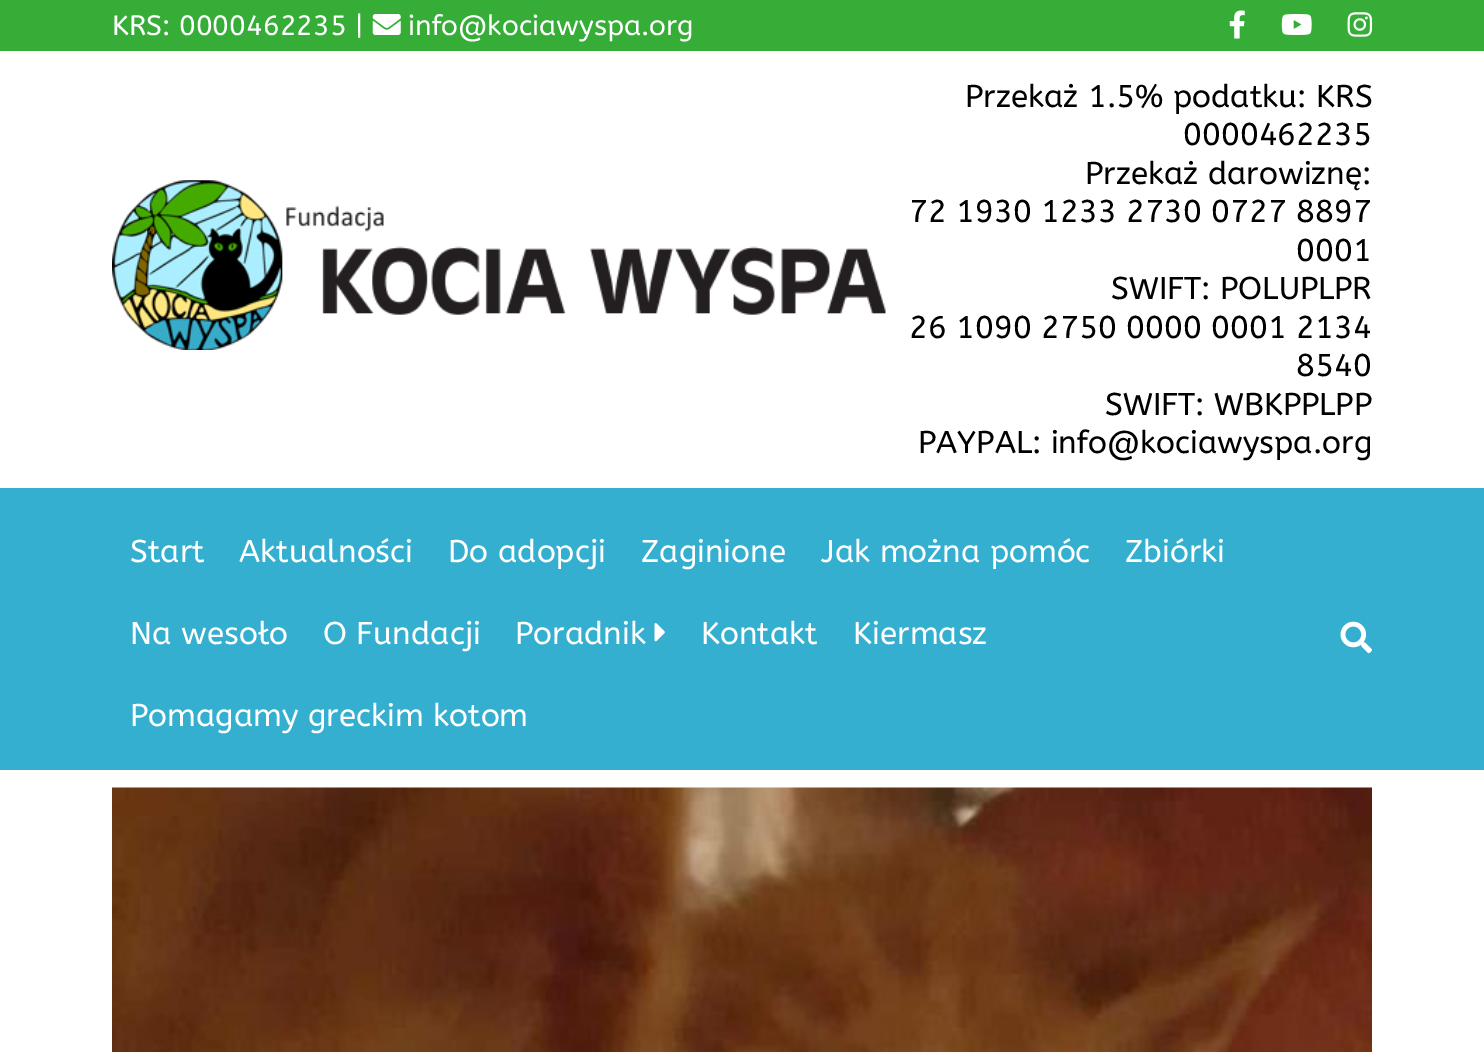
%!PS
<< /PageSize [1484 1052] >> setpagedevice
/rgb { 3 { 255 div 3 1 roll } repeat setrgbcolor } def
/font { [ exch dup neg 0 0 3 -1 roll 0 0 ] selectfont } def
/text { moveto show } def
/picture { 5 dict begin { /h /w /y /x /name } { exch def } forall
  gsave x y translate w h scale
  w h 8 [w 0 0 h 0 0] name (r) file false 3 colorimage grestore end } def
0 1052 translate 1 -1 scale
4 setmiterlimit
255 255 255 rgb
0 0 1484 1052 rectfill
53 173 55 rgb
0 0 1484 51 rectfill
(img_01.rgb) 372 14 29 21 picture
(img_02.rgb) 1229 10 16 29 picture
(img_03.rgb) 1281 14 31 21 picture
(img_04.rgb) 1347 12 26 25 picture
(img_05.rgb) 112 180 774 170 picture
53 175 208 rgb
0 488 1484 282 rectfill
(img_06.rgb) 654 623 11 19 picture
(img_07.rgb) 1340 621 32 33 picture
(img_08.rgb) 112 787 1260 265 picture
/ABeeZee-Regular 28 font
255 255 255 rgb
(KRS: 0000462235 |) 112 35 text
(info@kociawyspa.org) 408 35 text
/ABeeZee-Regular 31.5 font
0 0 0 rgb
(Przekaż 1.5% podatku: KRS) 965 107 text
(0000462235) 1183 145 text
(Przekaż darowiznę:) 1085 184 text
(72 1930 1233 2730 0727 8897) 909 222 text
(0001) 1296 261 text
(SWIFT: POLUPLPR) 1111 299 text
(26 1090 2750 0000 0001 2134) 909 338 text
(8540) 1296 376 text
(SWIFT: WBKPPLPP) 1105 415 text
(PAYPAL: info@kociawyspa.org) 918 453 text
255 255 255 rgb
(Start) 130 562 text
(Aktualności) 239 562 text
(Do adopcji) 448 562 text
(Zaginione) 641 562 text
(Jak można pomóc) 821 562 text
(Zbiórki) 1125 562 text
(Na wesoło) 130 644 text
(O Fundacji) 323 644 text
(Poradnik) 515 644 text
(Kontakt) 701 644 text
(Kiermasz) 853 644 text
(Pomagamy greckim kotom) 130 726 text
showpage
